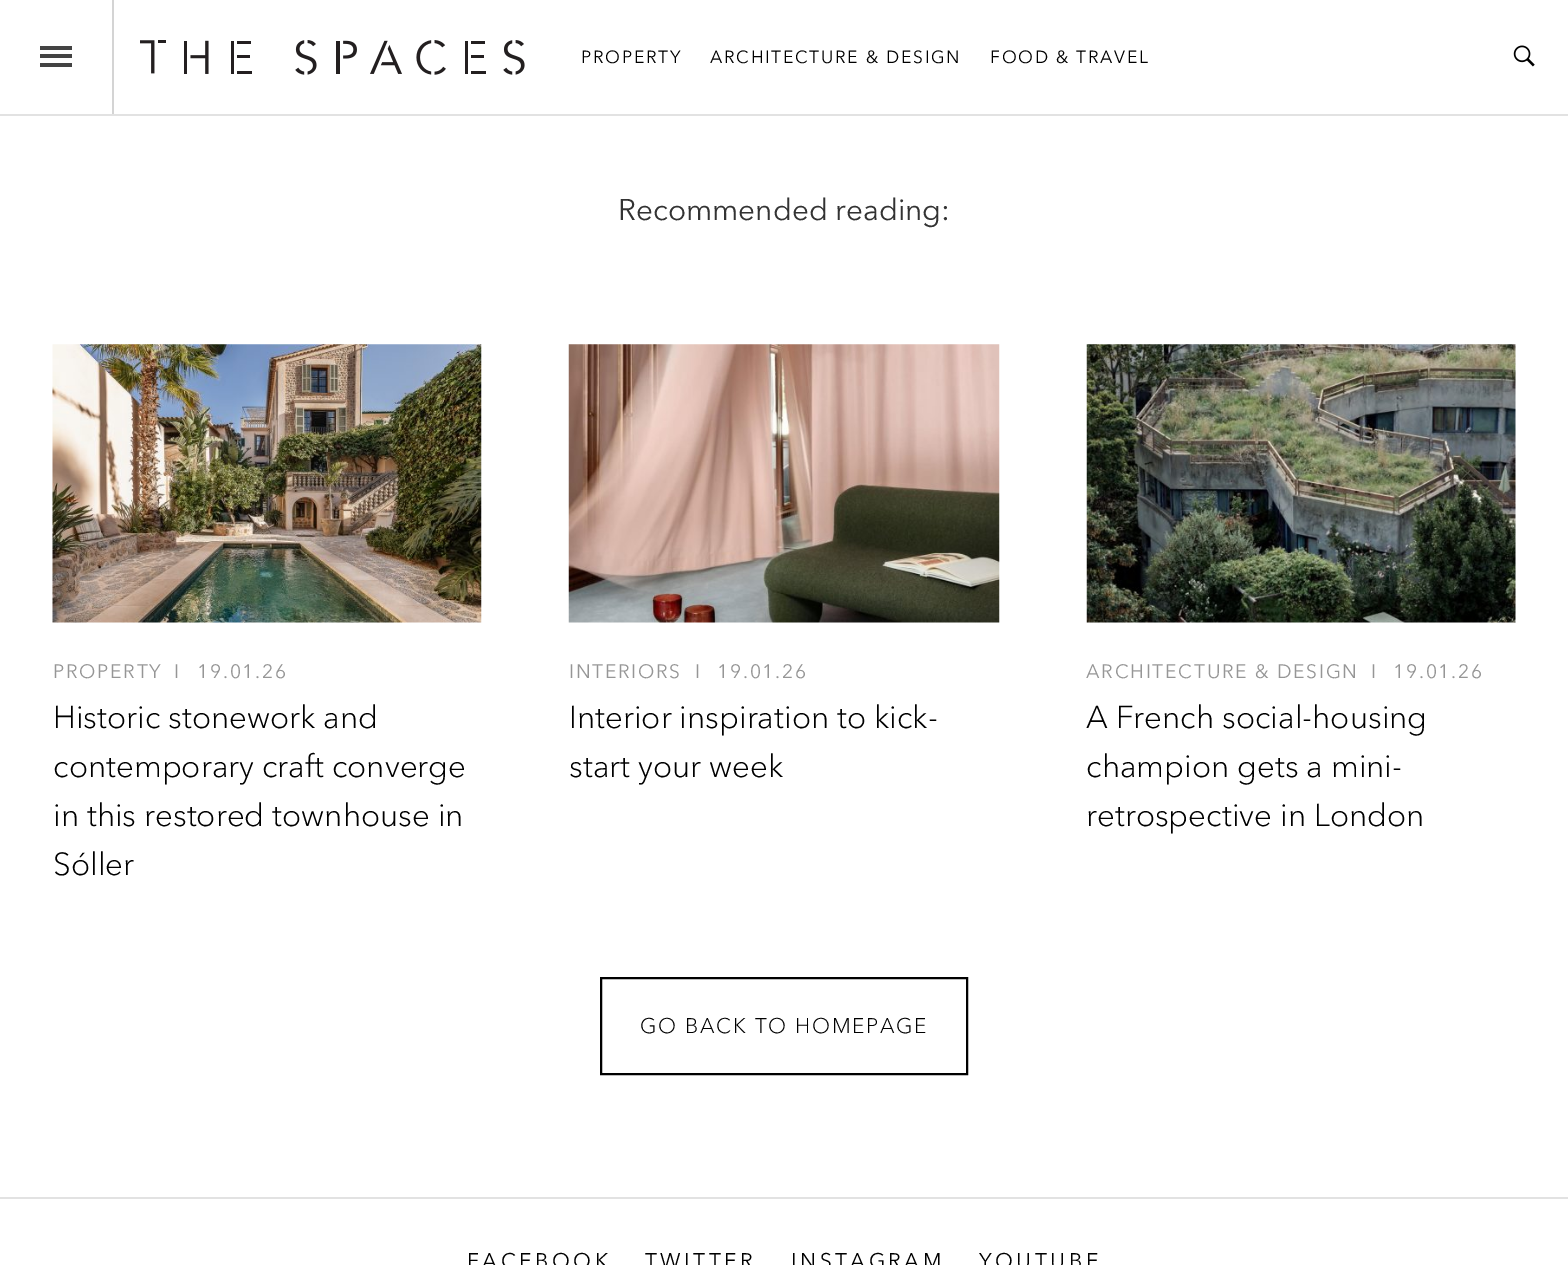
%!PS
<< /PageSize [1568 1265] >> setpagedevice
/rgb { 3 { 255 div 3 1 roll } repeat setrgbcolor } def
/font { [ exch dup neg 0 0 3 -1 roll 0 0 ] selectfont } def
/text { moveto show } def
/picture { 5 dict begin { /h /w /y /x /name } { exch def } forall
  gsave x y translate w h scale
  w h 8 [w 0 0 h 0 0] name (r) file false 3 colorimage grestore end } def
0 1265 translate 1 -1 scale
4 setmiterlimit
255 255 255 rgb
0 0 1568 1265 rectfill
226 226 226 rgb
0 114 1568 2 rectfill
212 212 212 rgb
112 0 2 114 rectfill
67 67 67 rgb
40 54 32 4 rectfill
40 46 32 4 rectfill
40 63 32 4 rectfill
(img_01.rgb) 140 40 385 35 picture
(img_02.rgb) 1513 45 22 22 picture
(img_03.rgb) 52 344 430 279 picture
(img_04.rgb) 568 344 432 279 picture
(img_05.rgb) 1086 344 430 279 picture
0 0 0 rgb
2 setlinewidth
601 978 366 96 rectstroke
226 226 226 rgb
0 1197 1568 2 rectfill
/AvenirNext-Regular 17.5 font
0 0 0 rgb
581 63 moveto 1.75 0 (PROPERTY) ashow
710 63 moveto 1.75 0 (ARCHITECTURE & DESIGN) ashow
990 63 moveto 1.75 0 (FOOD & TRAVEL) ashow
/AvenirNext-Regular 29.75 font
51 51 51 rgb
(Recommended reading:) 618 220 text
/AvenirNext-Regular 19.25 font
150 150 150 rgb
53 678 moveto 1.75 0 (PROPERTY) ashow
174 678 moveto 1.75 0 (I) ashow
197 678 moveto 1.75 0 (19.01.26) ashow
/AvenirNext-Light 31.5 font
0 0 0 rgb
(Historic stonework and) 53 728 text
(contemporary craft converge) 53 777 text
(in this restored townhouse in) 53 826 text
(Sóller) 53 875 text
/AvenirNext-Regular 19.25 font
150 150 150 rgb
569 678 moveto 1.75 0 (INTERIORS) ashow
695 678 moveto 1.75 0 (I) ashow
717 678 moveto 1.75 0 (19.01.26) ashow
/AvenirNext-Light 31.5 font
0 0 0 rgb
(Interior inspiration to kick-) 569 728 text
(start your week) 569 777 text
/AvenirNext-Regular 19.25 font
150 150 150 rgb
1086 678 moveto 1.75 0 (ARCHITECTURE & DESIGN) ashow
1371 678 moveto 1.75 0 (I) ashow
1393 678 moveto 1.75 0 (19.01.26) ashow
/AvenirNext-Light 31.5 font
0 0 0 rgb
(A French social-housing) 1086 728 text
(champion gets a mini-) 1086 777 text
(retrospective in London) 1086 826 text
/AvenirNext-Light 21 font
640 1033 moveto 1.75 0 (GO BACK TO HOMEPAGE) ashow
/AvenirNext-Regular 21 font
467 1268 moveto 3.5 0 (FACEBOOK) ashow
645 1268 moveto 3.5 0 (TWITTER) ashow
791 1268 moveto 3.5 0 (INSTAGRAM) ashow
979 1268 moveto 3.5 0 (YOUTUBE) ashow
showpage
